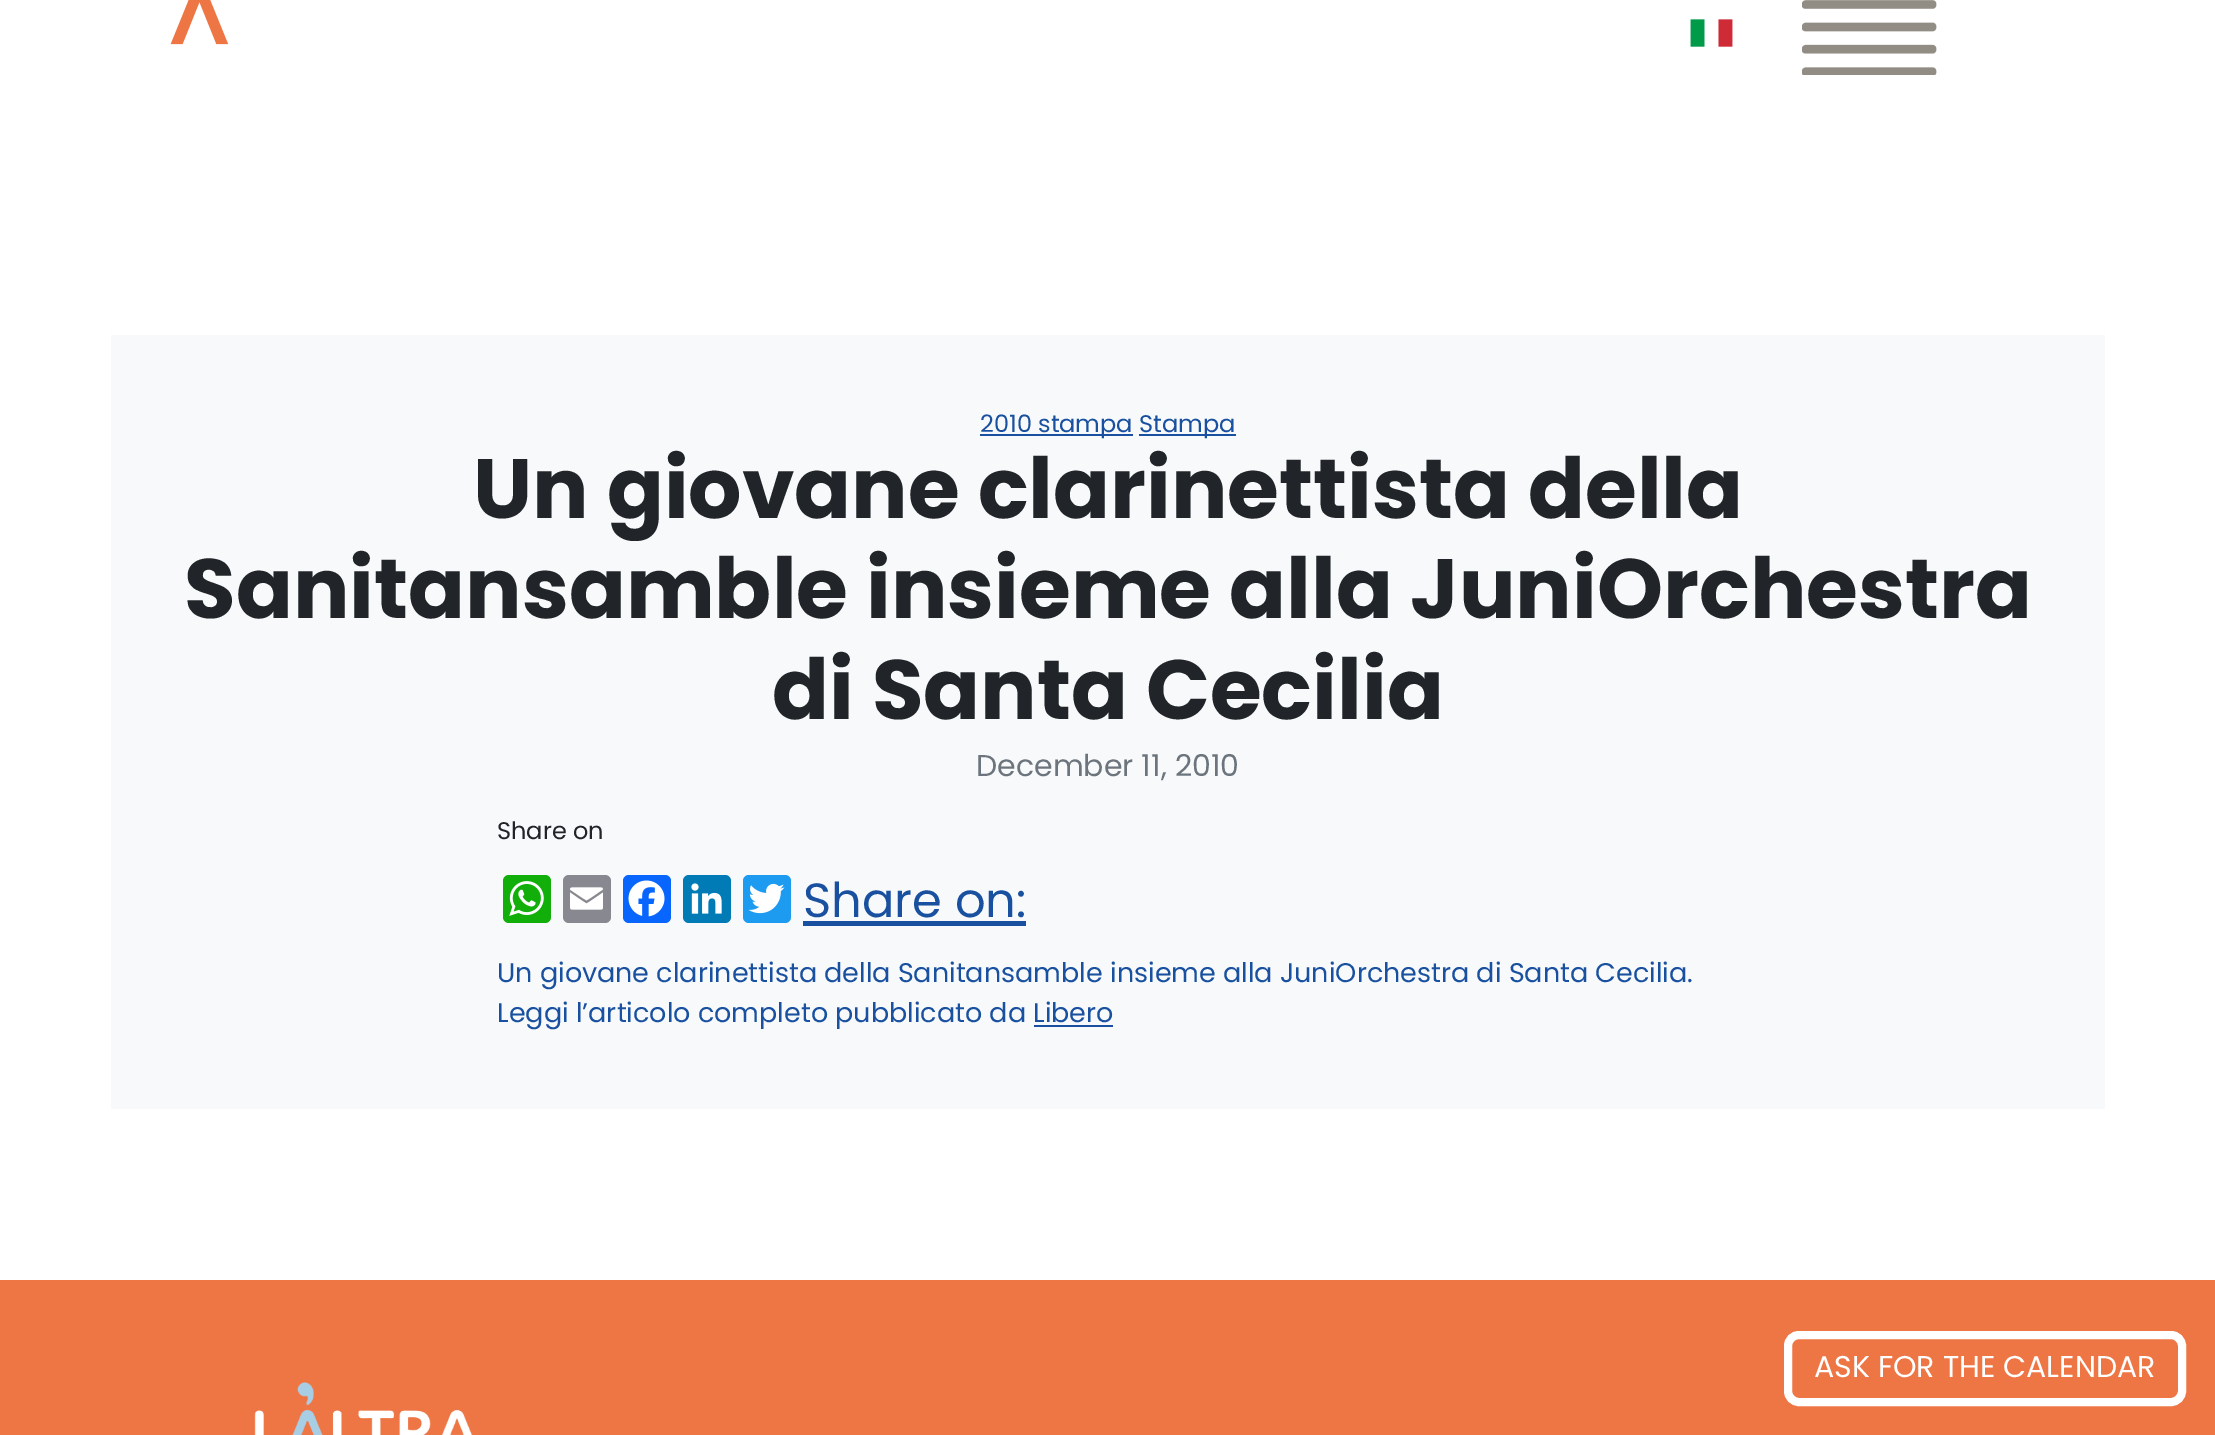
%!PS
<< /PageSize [2215 1435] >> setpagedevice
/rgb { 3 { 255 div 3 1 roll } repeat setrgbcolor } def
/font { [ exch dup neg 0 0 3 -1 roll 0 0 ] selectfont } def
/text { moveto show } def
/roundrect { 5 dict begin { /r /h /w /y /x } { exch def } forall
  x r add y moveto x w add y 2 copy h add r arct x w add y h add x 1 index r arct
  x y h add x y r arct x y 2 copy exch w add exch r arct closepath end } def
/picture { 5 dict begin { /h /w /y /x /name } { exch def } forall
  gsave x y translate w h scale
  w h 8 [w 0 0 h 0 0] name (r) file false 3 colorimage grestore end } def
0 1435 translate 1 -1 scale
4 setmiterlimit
255 255 255 rgb
0 0 2215 1435 rectfill
(img_01.rgb) 170 0 59 45 picture
(img_02.rgb) 1690 19 43 28 picture
(img_03.rgb) 1802 0 135 75 picture
248 249 250 rgb
111 335 1994 774 rectfill
25 81 160 rgb
980 434 153 2 rectfill
1139 434 97 2 rectfill
18 175 10 rgb
503 875 48 48 6 roundrect fill
(img_04.rgb) 509 881 35 35 picture
136 137 144 rgb
563 875 48 48 6 roundrect fill
(img_05.rgb) 570 887 33 23 picture
8 102 255 rgb
623 875 48 48 6 roundrect fill
(img_06.rgb) 628 880 37 37 picture
0 123 181 rgb
683 875 48 48 6 roundrect fill
(img_07.rgb) 691 883 31 31 picture
29 155 240 rgb
743 875 48 48 6 roundrect fill
(img_08.rgb) 748 883 37 31 picture
25 81 160 rgb
803 921 223 5 rectfill
1034 1025 79 2 rectfill
238 117 68 rgb
0 1280 2215 155 rectfill
255 255 255 rgb
8 setlinewidth
1788 1335 394 67 11 roundrect stroke
(img_09.rgb) 254 1382 219 53 picture
/Poppins-Regular 24 font
25 81 160 rgb
(2010 stampa) 980 432 text
(Stampa) 1139 432 text
/Poppins-Bold 84 font
33 37 41 rgb
(Un giovane clarinettista della) 473 518 text
(Sanitansamble insieme alla JuniOrchestra) 184 618 text
(di Santa Cecilia) 772 719 text
/Poppins-Regular 30 font
108 117 125 rgb
(December 11, 2010) 976 776 text
/Poppins-Regular 24 font
33 37 41 rgb
(Share on) 497 839 text
/Poppins-Regular 48 font
25 81 160 rgb
(Share on:) 803 917 text
/Poppins-Regular 27 font
(Un giovane clarinettista della Sanitansamble insieme alla JuniOrchestra di Santa Cecilia.) 497 982 text
(Leggi l’articolo completo pubblicato da Libero) 497 1022 text
/Poppins-Regular 30 font
255 255 255 rgb
(ASK FOR THE CALENDAR) 1814 1377 text
showpage
